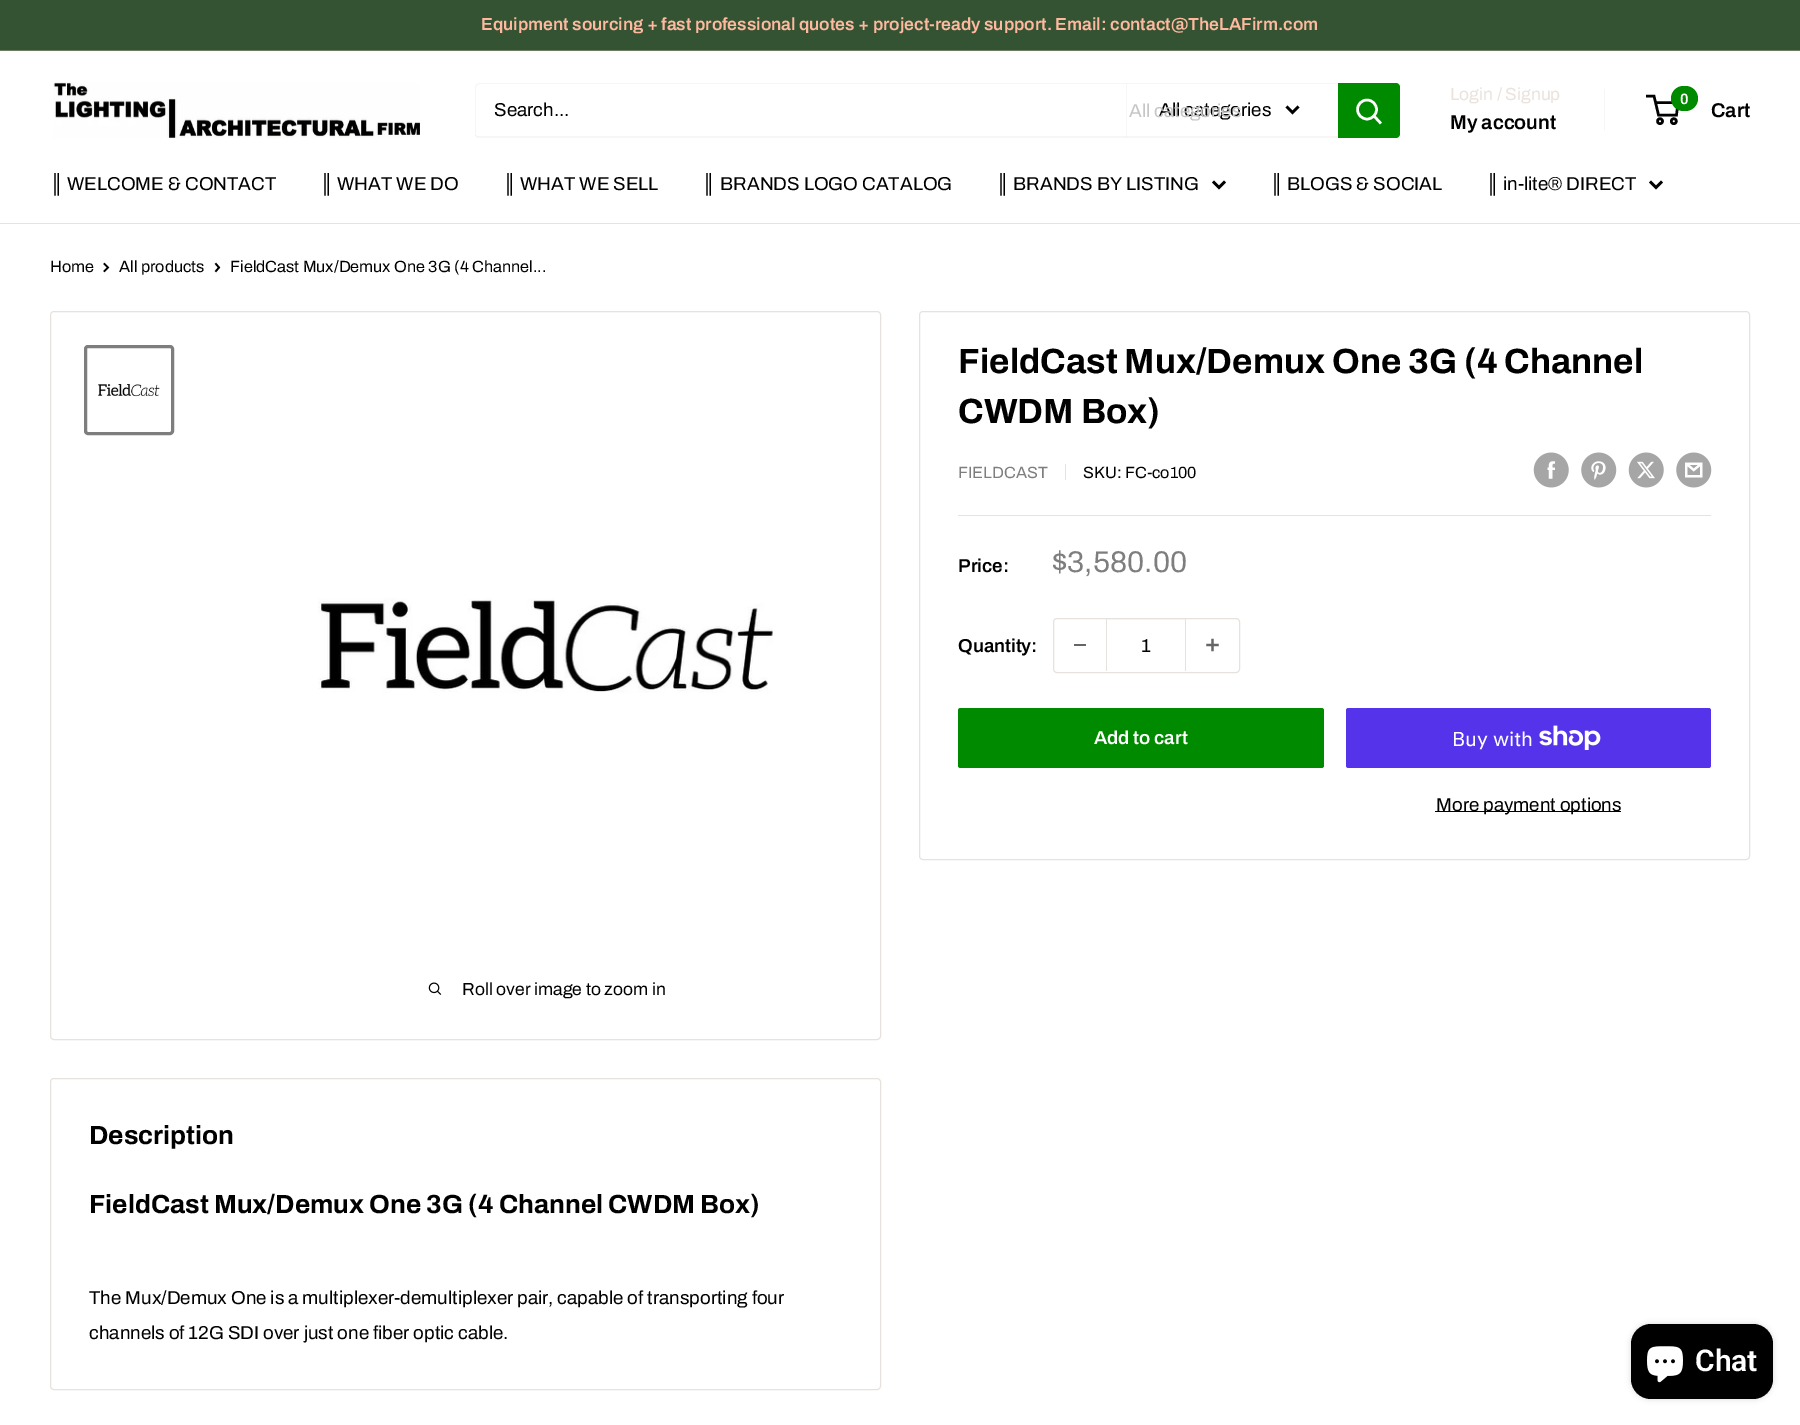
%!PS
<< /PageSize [1800 1425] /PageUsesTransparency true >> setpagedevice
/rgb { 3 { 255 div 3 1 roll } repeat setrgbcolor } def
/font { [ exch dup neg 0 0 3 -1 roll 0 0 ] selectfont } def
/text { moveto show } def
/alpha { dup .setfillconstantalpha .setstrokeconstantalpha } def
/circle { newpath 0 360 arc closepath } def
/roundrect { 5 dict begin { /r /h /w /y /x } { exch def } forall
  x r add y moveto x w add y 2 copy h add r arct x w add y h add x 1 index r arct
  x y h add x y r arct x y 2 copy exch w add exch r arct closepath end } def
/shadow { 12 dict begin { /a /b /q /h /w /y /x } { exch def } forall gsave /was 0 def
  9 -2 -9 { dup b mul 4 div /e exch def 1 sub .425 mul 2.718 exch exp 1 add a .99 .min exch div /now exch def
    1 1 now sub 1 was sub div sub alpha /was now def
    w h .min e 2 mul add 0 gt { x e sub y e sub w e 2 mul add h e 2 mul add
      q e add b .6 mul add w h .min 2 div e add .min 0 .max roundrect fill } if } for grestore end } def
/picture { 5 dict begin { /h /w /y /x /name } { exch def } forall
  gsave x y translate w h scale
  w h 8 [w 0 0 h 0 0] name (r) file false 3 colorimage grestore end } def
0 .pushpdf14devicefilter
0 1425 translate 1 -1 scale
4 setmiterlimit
255 255 255 rgb
0 0 1800 1425 rectfill
52 83 51 rgb
0 0 1800 50 rectfill
106 126 102 rgb
0 50 1800 1 rectfill
(img_01.rgb) 53 82 367 57 picture
248 246 245 rgb
475 135 moveto 1 2 2 3 4 3 rcurveto 917 0 rlineto 2 0 4 -2 4 -4 rcurveto 0 -47 rlineto 0 -1 0 -2 -1 -3 rcurveto 0 40 rlineto 0 3 2 12 -4 12 rcurveto -917 0 rlineto closepath fill
0.3 alpha
233 226 221 rgb
480 84 moveto 919 0 rlineto -1 -1 -2 -1 -3 -1 rcurveto -917 0 rlineto -2 0 -4 2 -4 4 rcurveto 0 47 rlineto 0 1 1 3 2 3 rcurveto -1 -2 rlineto 0 -47 rlineto 0 -3 2 -4 4 -4 rcurveto closepath fill
1126 83 1 55 rectfill
1 alpha
0 0 0 rgb
2.5 setlinewidth
2 setlinecap
1297.5 107.5 moveto -5 5 rlineto -5 -5 rlineto stroke
0 138 0 rgb
1338 83 moveto 58 0 rlineto 2 0 4 2 4 4 rcurveto 0 47 rlineto 0 2 -2 4 -4 4 rcurveto -58 0 rlineto closepath fill
255 255 255 rgb
1380 122.5 moveto -6 -6.5 rlineto stroke
0 setlinecap
1367 109.5 9.5 circle stroke
248 246 245 rgb
1604 89 1 42 rectfill
0 0 0 rgb
1660 121.2 2.5 circle stroke
1673.8 121.2 2.5 circle stroke
1655.5 102.5 moveto 22.5 0 rlineto -1.5 12.5 rlineto -18 0 rlineto -4.5 -19 rlineto -8 0 rlineto stroke
0 138 0 rgb
1671 86 27 25 12.5 roundrect fill
231 226 222 rgb
0 223 1800 1 rectfill
0 0 0 rgb
2 setlinecap
1224 182.5 moveto -5 5 rlineto -5 -5 rlineto stroke
1661 182.5 moveto -5 5 rlineto -5 -5 rlineto stroke
1.7 setlinewidth
104.5 264 moveto 3.5 3.5 rlineto -3.5 3.5 rlineto stroke
216 264 moveto 3 3.5 rlineto -3 3.5 rlineto stroke
231 226 222 rgb
1 setlinewidth
0 setlinecap
919.5 311.5 830 548 3.5 roundrect stroke
1065 464 1 16 rectfill
(img_02.rgb) 1533 452 36 36 picture
(img_03.rgb) 1581 452 36 36 picture
(img_04.rgb) 1628 452 36 36 picture
(img_05.rgb) 1676 452 36 36 picture
958 515 753 1 rectfill
1053.5 618.5 186 54 3.5 roundrect stroke
102 102 102 rgb
1074 644 12 2 rectfill
245 243 242 rgb
1108 619 77 1 rectfill
231 226 222 rgb
1185 619 1 52 rectfill
1106 619 1 52 rectfill
(img_06.rgb) 1206 638 13 14 picture
0 138 0 rgb
958 708 366 60 2.5 roundrect fill
84 51 235 rgb
1346 708 365 60 2.5 roundrect fill
(img_07.rgb) 1539 725 62 25 picture
0 0 0 rgb
1435 811 186 1 rectfill
231 226 222 rgb
50.5 311.5 830 728 3.5 roundrect stroke
126 126 126 rgb
3 setlinewidth
85.5 346.5 87 87 2.5 roundrect stroke
(img_08.rgb) 98 384 62 13 picture
(img_09.rgb) 318 598 455 95 picture
(img_10.rgb) 428 982 14 13 picture
231 226 222 rgb
1 setlinewidth
50.5 1078.5 830 311 3.5 roundrect stroke
0 0 0 rgb
1631 1324 142 75 20 3 0.15 shadow
1631 1324 142 75 20 roundrect fill
(img_11.rgb) 1647 1346 36 37 picture
/Archivo-SemiBold 17.5 font
255 185 159 rgb
(Equipment sourcing + fast professional quotes + project-ready support. Email: contact@TheLAFirm.com) 481 30 text
/Archivo-Regular 18.75 font
0 0 0 rgb
(Search...) 494 116 text
(All categories) 1159 116 text
198 198 198 rgb
(All categories) 1129 117 text
/Archivo-Regular 17.5 font
233 226 221 rgb
(Login / Signup) 1450 100 text
/Archivo-SemiBold 20 font
0 0 0 rgb
(My account) 1450 129 text
/Archivo-SemiBold 15 font
255 255 255 rgb
(0) 1680 104 text
/Archivo-SemiBold 20 font
0 0 0 rgb
(Cart) 1711 117 text
/LiberationSans-Regular 18.75 font
(║) 50 190 text
/Archivo-Regular 18.75 font
(WELCOME & CONTACT) 67 190 text
/LiberationSans-Regular 18.75 font
(║) 320 190 text
/Archivo-Regular 18.75 font
(WHAT WE DO) 337 190 text
/LiberationSans-Regular 18.75 font
(║) 503 190 text
/Archivo-Regular 18.75 font
(WHAT WE SELL) 520 190 text
/LiberationSans-Regular 18.75 font
(║) 702 190 text
/Archivo-Regular 18.75 font
(BRANDS LOGO CATALOG) 720 190 text
/LiberationSans-Regular 18.75 font
(║) 996 190 text
/Archivo-Regular 18.75 font
(BRANDS BY LISTING) 1013 190 text
/LiberationSans-Regular 18.75 font
(║) 1270 190 text
/Archivo-Regular 18.75 font
(BLOGS & SOCIAL) 1287 190 text
/LiberationSans-Regular 18.75 font
(║) 1486 190 text
/Archivo-Regular 18.75 font
(in-lite® DIRECT) 1503 190 text
/Archivo-Regular 16.25 font
(Home) 50 272 text
(All products) 119 272 text
(FieldCast Mux/Demux One 3G \(4 Channel...) 230 272 text
/Archivo-Bold 35 font
(FieldCast Mux/Demux One 3G \(4 Channel) 958 373 text
(CWDM Box\)) 958 423 text
/Archivo-Regular 16.25 font
126 126 126 rgb
(FIELDCAST) 958 478 text
0 0 0 rgb
(SKU: FC-co100) 1083 478 text
/Archivo-SemiBold 18.75 font
(Price:) 958 572 text
/Archivo-Regular 30 font
126 126 126 rgb
($3,580.00) 1052 572 text
/Archivo-SemiBold 18.75 font
0 0 0 rgb
(Quantity:) 958 652 text
/Archivo-Regular 18.75 font
(1) 1141 652 text
/Archivo-SemiBold 18.75 font
255 255 255 rgb
(Add to cart) 1094 744 text
/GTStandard-Regular 20 font
(Buy with) 1452 746 text
/Archivo-Regular 18.75 font
0 0 0 rgb
(More payment options) 1436 811 text
/Archivo-Regular 17.5 font
(Roll over image to zoom in) 462 995 text
/Archivo-Bold 26.25 font
(Description) 89 1144 text
(FieldCast Mux/Demux One 3G \(4 Channel CWDM Box\)) 89 1213 text
/Archivo-Regular 18.75 font
(The Mux/Demux One is a multiplexer-demultiplexer pair, capable of transporting four) 89 1304 text
(channels of 12G SDI over just one fiber optic cable.) 89 1339 text
/Roboto-SemiBold 30 font
255 255 255 rgb
(Chat) 1695 1371 text
.poppdf14devicefilter showpage
